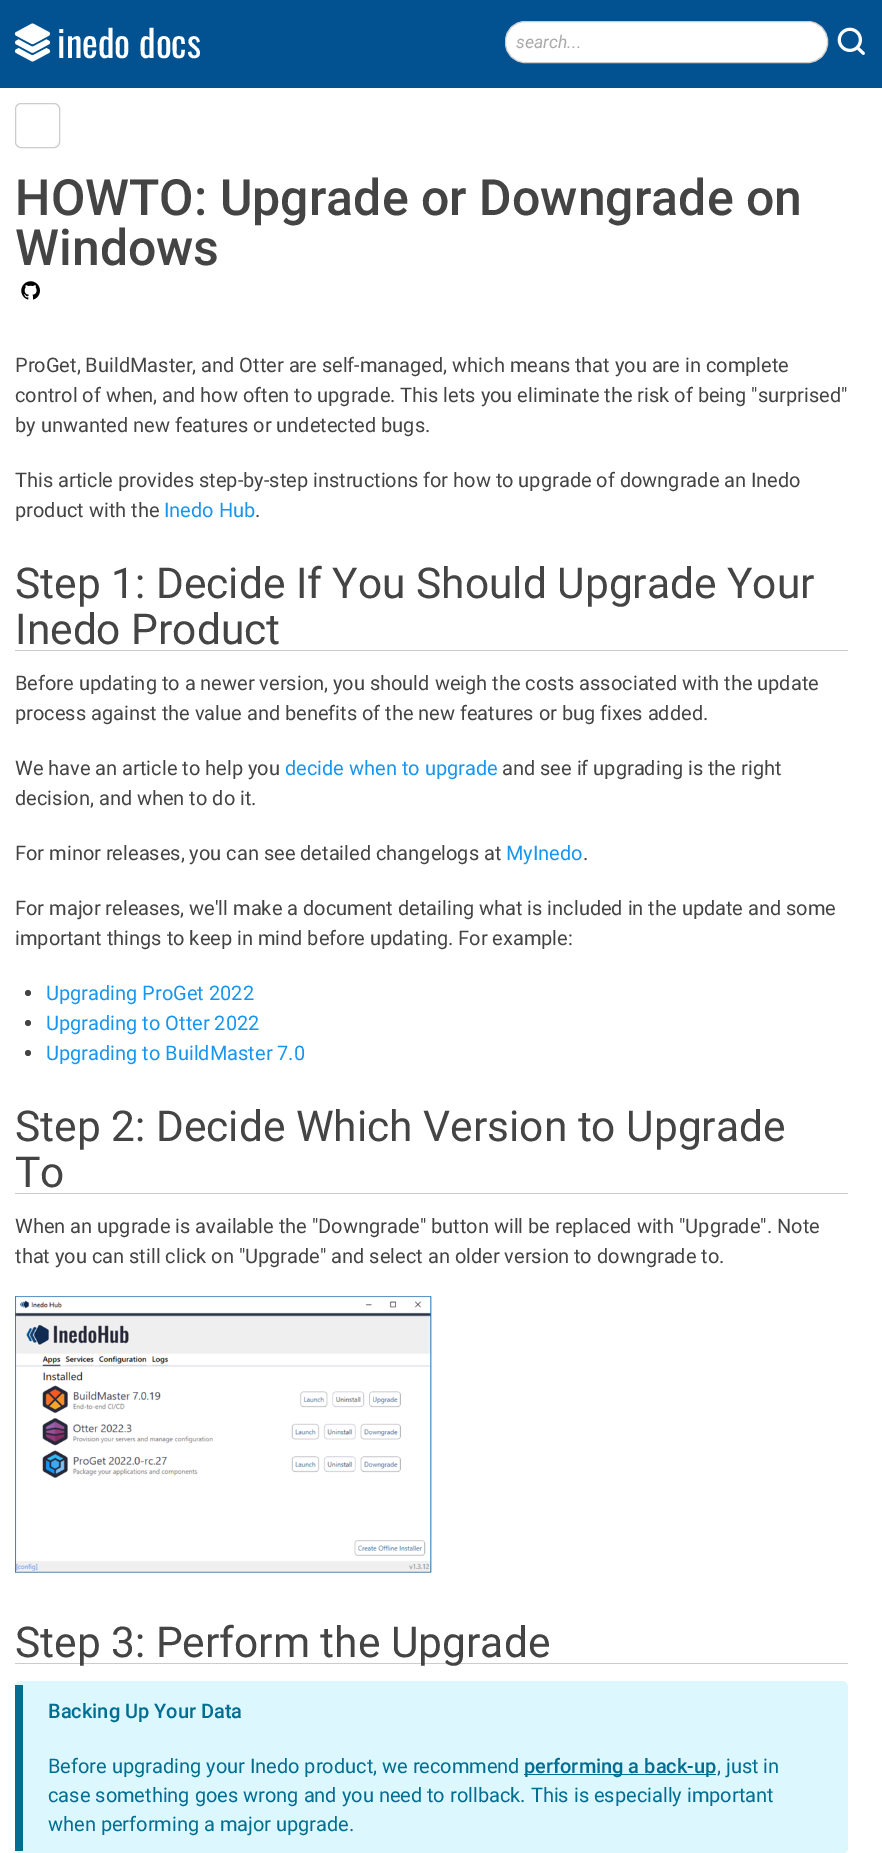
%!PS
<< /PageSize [882 1853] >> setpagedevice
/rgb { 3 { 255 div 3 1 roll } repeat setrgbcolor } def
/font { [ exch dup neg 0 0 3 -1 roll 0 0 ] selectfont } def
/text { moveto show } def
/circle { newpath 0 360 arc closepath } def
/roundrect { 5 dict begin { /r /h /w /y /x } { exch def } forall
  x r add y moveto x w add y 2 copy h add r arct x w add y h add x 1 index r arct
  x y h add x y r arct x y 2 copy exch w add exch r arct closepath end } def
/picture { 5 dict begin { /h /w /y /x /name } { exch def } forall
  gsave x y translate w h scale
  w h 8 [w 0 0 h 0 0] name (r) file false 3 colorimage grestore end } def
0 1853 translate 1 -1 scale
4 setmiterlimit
255 255 255 rgb
0 0 882 1853 rectfill
2 82 145 rgb
0 0 882 88 rectfill
(img_01.rgb) 14 23 37 39 picture
255 255 255 rgb
505.5 21.5 322 41 19.5 roundrect gsave fill grestore
204 204 204 rgb
stroke
(img_02.rgb) 837 27 28 28 picture
15.5 103.5 44 44 5.5 roundrect stroke
(img_03.rgb) 21 281 19 19 picture
15 650 833 1 rectfill
68 68 68 rgb
28 993 3 circle fill
28 1023 3 circle fill
28 1053 3 circle fill
204 204 204 rgb
15 1193 833 1 rectfill
(img_04.rgb) 15 1296 417 277 picture
15 1663 833 1 rectfill
221 247 255 rgb
15 1681 833 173 6 roundrect fill
0 110 145 rgb
15 1685 8 166 rectfill
524 1774 192 1 rectfill
/Oswald-Regular 37.5 font
255 255 255 rgb
(inedo docs) 57 58 text
/Roboto-Italic 17.5 font
170 170 170 rgb
(search...) 516 48 text
/Roboto-Medium 50 font
68 68 68 rgb
(HOWTO: Upgrade or Downgrade on) 15 215 text
(Windows) 15 265 text
/Roboto-Regular 20 font
(ProGet, BuildMaster, and Otter are self-managed, which means that you are in complete) 15 372 text
(control of when, and how often to upgrade. This lets you eliminate the risk of being "surprised") 15 402 text
(by unwanted new features or undetected bugs.) 15 432 text
(This article provides step-by-step instructions for how to upgrade of downgrade an Inedo) 15 487 text
(product with the) 15 517 text
22 150 240 rgb
(Inedo Hub) 164 517 text
68 68 68 rgb
(.) 255 517 text
/Roboto-Regular 42.5 font
(Step 1: Decide If You Should Upgrade Your) 15 598 text
(Inedo Product) 15 644 text
/Roboto-Regular 20 font
(Before updating to a newer version, you should weigh the costs associated with the update) 15 690 text
(process against the value and benefits of the new features or bug fixes added.) 15 720 text
(We have an article to help you) 15 775 text
22 150 240 rgb
(decide when to upgrade) 285 775 text
68 68 68 rgb
(and see if upgrading is the right) 502 775 text
(decision, and when to do it.) 15 805 text
(For minor releases, you can see detailed changelogs at) 15 860 text
22 150 240 rgb
(MyInedo) 506 860 text
68 68 68 rgb
(.) 583 860 text
(For major releases, we'll make a document detailing what is included in the update and some) 15 915 text
(important things to keep in mind before updating. For example:) 15 945 text
22 150 240 rgb
(Upgrading ProGet 2022) 46 1000 text
(Upgrading to Otter 2022) 46 1030 text
(Upgrading to BuildMaster 7.0) 46 1060 text
/Roboto-Regular 42.5 font
68 68 68 rgb
(Step 2: Decide Which Version to Upgrade) 15 1141 text
(To) 15 1187 text
/Roboto-Regular 20 font
(When an upgrade is available the "Downgrade" button will be replaced with "Upgrade". Note) 15 1233 text
(that you can still click on "Upgrade" and select an older version to downgrade to.) 15 1263 text
/Roboto-Regular 42.5 font
(Step 3: Perform the Upgrade) 15 1657 text
/Roboto-Medium 20 font
0 110 145 rgb
(Backing Up Your Data) 48 1718 text
/Roboto-Regular 20 font
(Before upgrading your Inedo product, we recommend) 48 1773 text
/Roboto-Medium 20 font
(performing a back-up) 524 1773 text
/Roboto-Regular 20 font
(, just in) 717 1773 text
(case something goes wrong and you need to rollback. This is especially important) 48 1802 text
(when performing a major upgrade.) 48 1831 text
showpage
